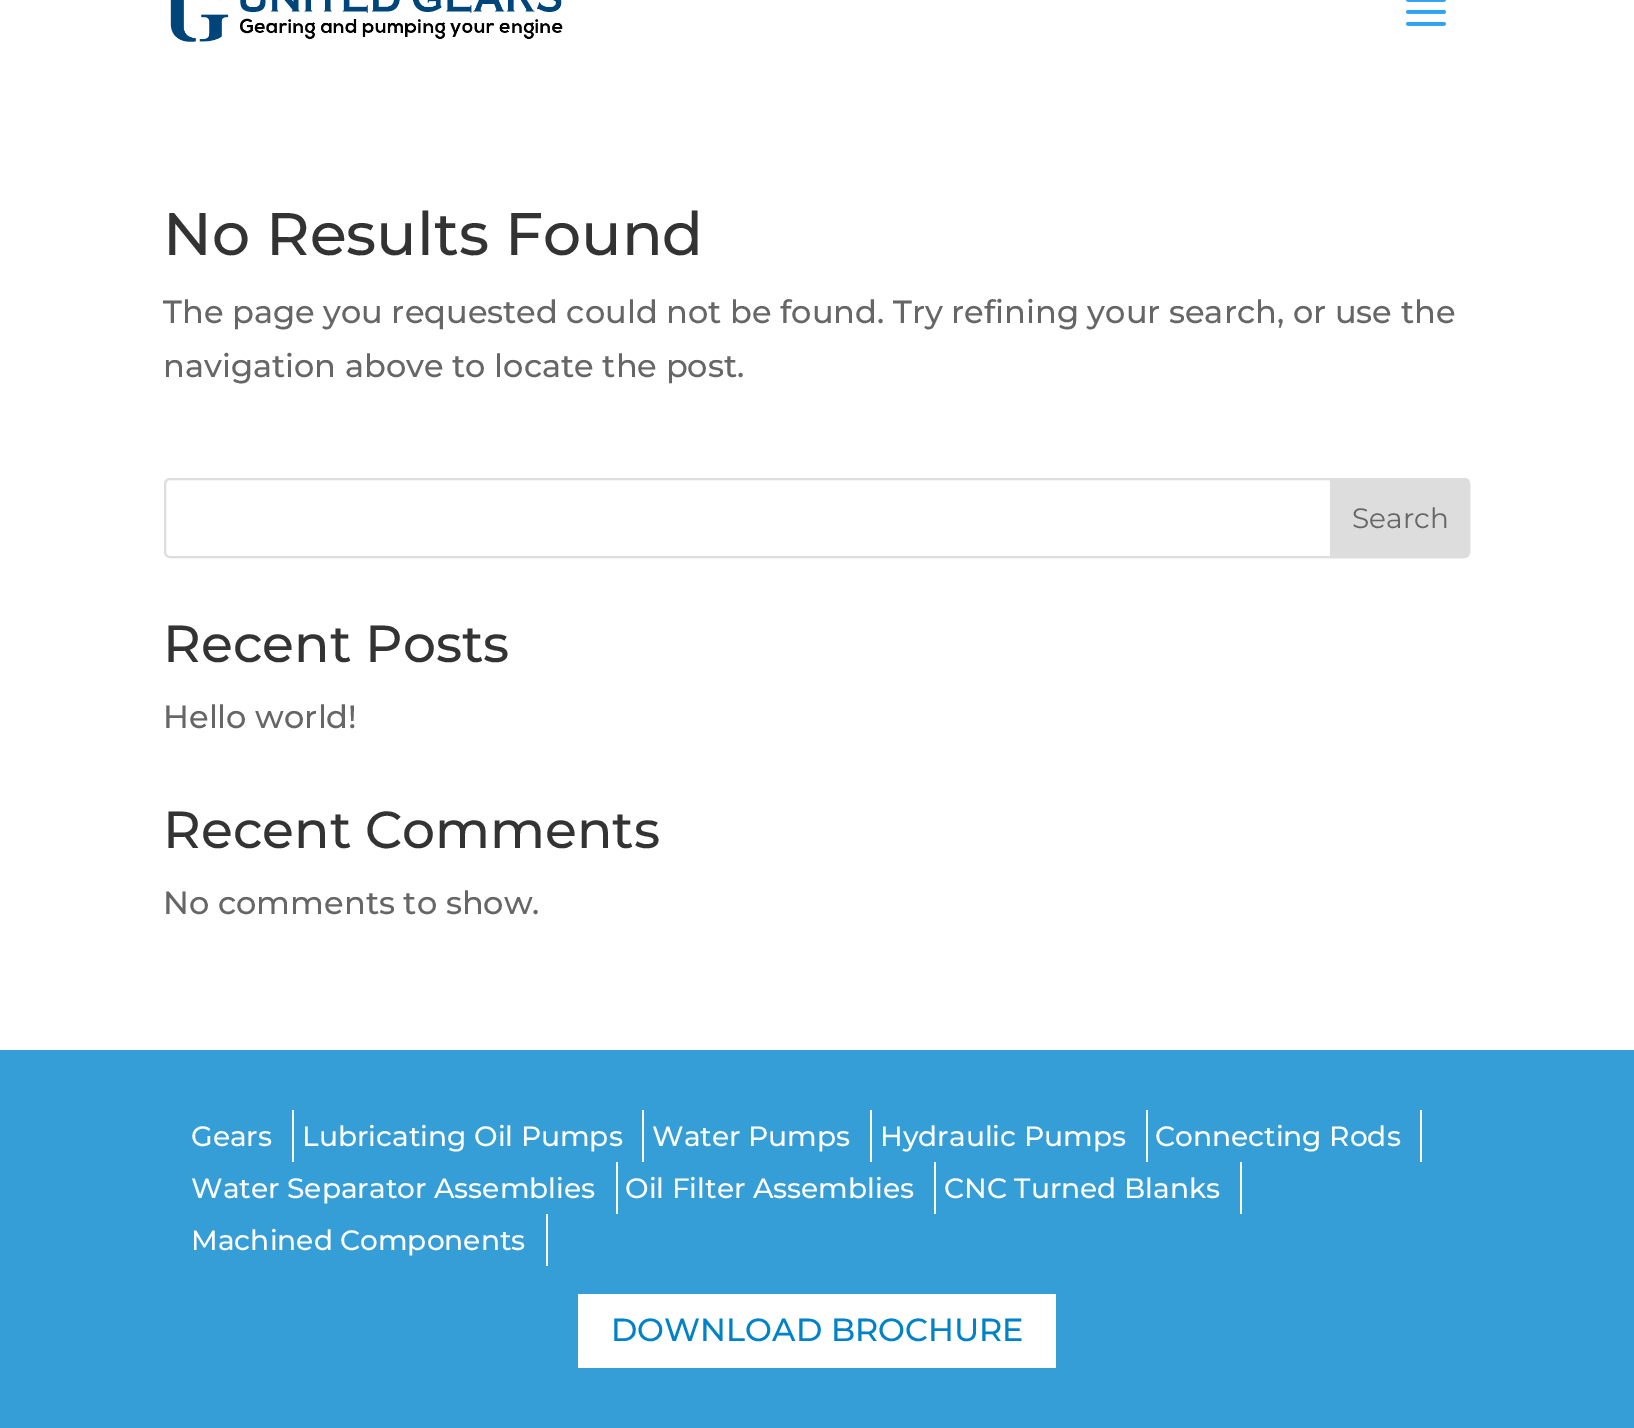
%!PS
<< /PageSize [1634 1428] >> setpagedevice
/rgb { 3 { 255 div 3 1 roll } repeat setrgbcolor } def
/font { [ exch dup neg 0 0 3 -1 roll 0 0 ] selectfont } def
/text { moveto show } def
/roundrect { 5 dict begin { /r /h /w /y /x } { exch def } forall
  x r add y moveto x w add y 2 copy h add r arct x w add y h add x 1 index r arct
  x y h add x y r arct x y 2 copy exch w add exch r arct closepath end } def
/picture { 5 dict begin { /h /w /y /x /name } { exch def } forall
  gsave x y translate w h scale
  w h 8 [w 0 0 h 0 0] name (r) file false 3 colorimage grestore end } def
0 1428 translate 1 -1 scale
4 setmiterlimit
255 255 255 rgb
0 0 1634 1428 rectfill
(img_01.rgb) 170 0 393 42 picture
(img_02.rgb) 1406 0 40 26 picture
221 221 221 rgb
2 setlinewidth
165 479 1304 78 5 roundrect stroke
1331 479 moveto 133 0 rlineto 3 0 5 2 5 5 rcurveto 0 68 rlineto 0 3 -2 5 -5 5 rcurveto -133 0 rlineto closepath gsave fill grestore
stroke
54 158 214 rgb
0 1050 1634 378 rectfill
255 255 255 rgb
292 1110 2 52 rectfill
642 1110 2 52 rectfill
870 1110 2 52 rectfill
1146 1110 2 52 rectfill
1420 1110 2 52 rectfill
616 1162 2 52 rectfill
934 1162 2 52 rectfill
1240 1162 2 52 rectfill
546 1214 2 52 rectfill
578 1294 478 74 rectfill
/Montserrat-Medium 60 font
51 51 51 rgb
(No Results Found) 163 255 text
/Montserrat-Medium 32 font
102 102 102 rgb
(The page you requested could not be found. Try refining your search, or use the) 163 323 text
(navigation above to locate the post.) 163 377 text
/Montserrat-Regular 28 font
(Search) 1352 528 text
/Montserrat-Medium 52 font
51 51 51 rgb
(Recent Posts) 163 662 text
/Montserrat-Medium 32 font
102 102 102 rgb
(Hello world!) 163 728 text
/Montserrat-Medium 52 font
51 51 51 rgb
(Recent Comments) 163 848 text
/Montserrat-Medium 32 font
102 102 102 rgb
(No comments to show.) 163 914 text
/Montserrat-Medium 28 font
255 255 255 rgb
(Gears) 191 1146 text
(Lubricating Oil Pumps) 302 1146 text
(Water Pumps) 652 1146 text
(Hydraulic Pumps) 880 1146 text
(Connecting Rods) 1155 1146 text
(Water Separator Assemblies) 191 1198 text
(Oil Filter Assemblies) 625 1198 text
(CNC Turned Blanks) 944 1198 text
(Machined Components) 191 1250 text
/Montserrat-Medium 32 font
0 130 201 rgb
(DOWNLOAD BROCHURE) 611 1341 text
showpage
